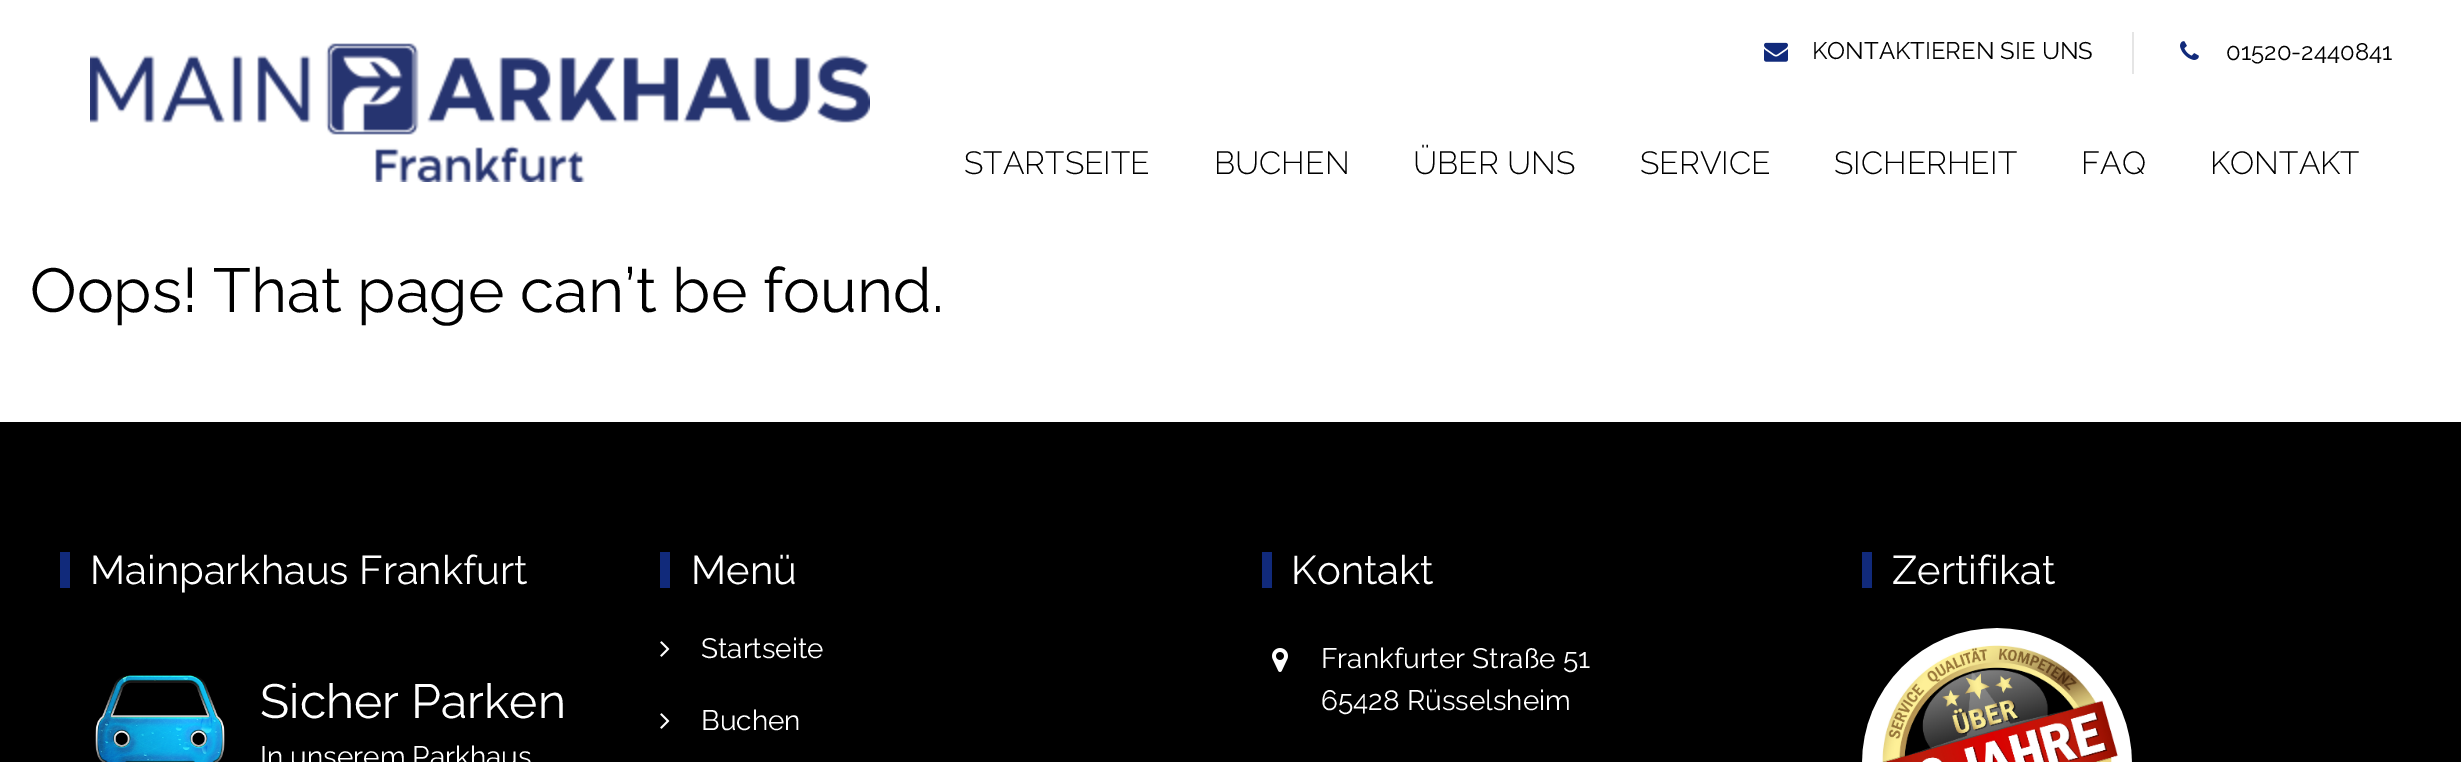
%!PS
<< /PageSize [2461 762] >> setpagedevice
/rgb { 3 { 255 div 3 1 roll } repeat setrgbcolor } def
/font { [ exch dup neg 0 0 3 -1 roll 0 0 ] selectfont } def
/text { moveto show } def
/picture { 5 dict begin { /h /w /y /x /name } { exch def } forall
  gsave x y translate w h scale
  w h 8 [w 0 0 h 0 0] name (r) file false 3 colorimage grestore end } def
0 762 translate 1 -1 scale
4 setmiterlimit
255 255 255 rgb
0 0 2461 762 rectfill
(img_01.rgb) 90 43 780 139 picture
(img_02.rgb) 1764 42 24 20 picture
229 229 229 rgb
2132 32 2 42 rectfill
(img_03.rgb) 2180 41 19 19 picture
0 0 0 rgb
0 422 2461 340 rectfill
17 42 123 rgb
60 552 10 36 rectfill
(img_04.rgb) 95 675 130 87 picture
660 552 10 36 rectfill
(img_05.rgb) 660 641 10 16 picture
(img_05.rgb) 660 713 10 16 picture
1262 552 10 36 rectfill
(img_06.rgb) 1272 648 16 24 picture
1862 552 10 36 rectfill
(img_07.rgb) 1862 628 270 134 picture
/Raleway-Regular 24 font
0 0 0 rgb
(KONTAKTIEREN SIE UNS) 1812 59 text
(01520-2440841) 2226 60 text
/Raleway-Light 32 font
(STARTSEITE) 964 174 text
(BUCHEN) 1214 174 text
(ÜBER UNS) 1413 174 text
(SERVICE) 1640 174 text
(SICHERHEIT) 1834 174 text
(FAQ) 2081 174 text
(KONTAKT) 2210 174 text
/Raleway-Regular 62 font
(Oops! That page can’t be found.) 30 312 text
/Raleway-Regular 40 font
255 255 255 rgb
(Mainparkhaus Frankfurt) 90 584 text
/Raleway-Regular 48 font
(Sicher Parken) 260 718 text
/Raleway-Regular 28 font
(In unserem Parkhaus) 260 766 text
/Raleway-Regular 40 font
(Menü) 691 584 text
/Raleway-Regular 28 font
(Startseite) 701 658 text
(Buchen) 701 730 text
/Raleway-Regular 40 font
(Kontakt) 1291 584 text
/Raleway-Regular 28 font
(Frankfurter Straße 51) 1321 668 text
(65428 Rüsselsheim) 1321 710 text
/Raleway-Regular 40 font
(Zertifikat) 1892 584 text
showpage
